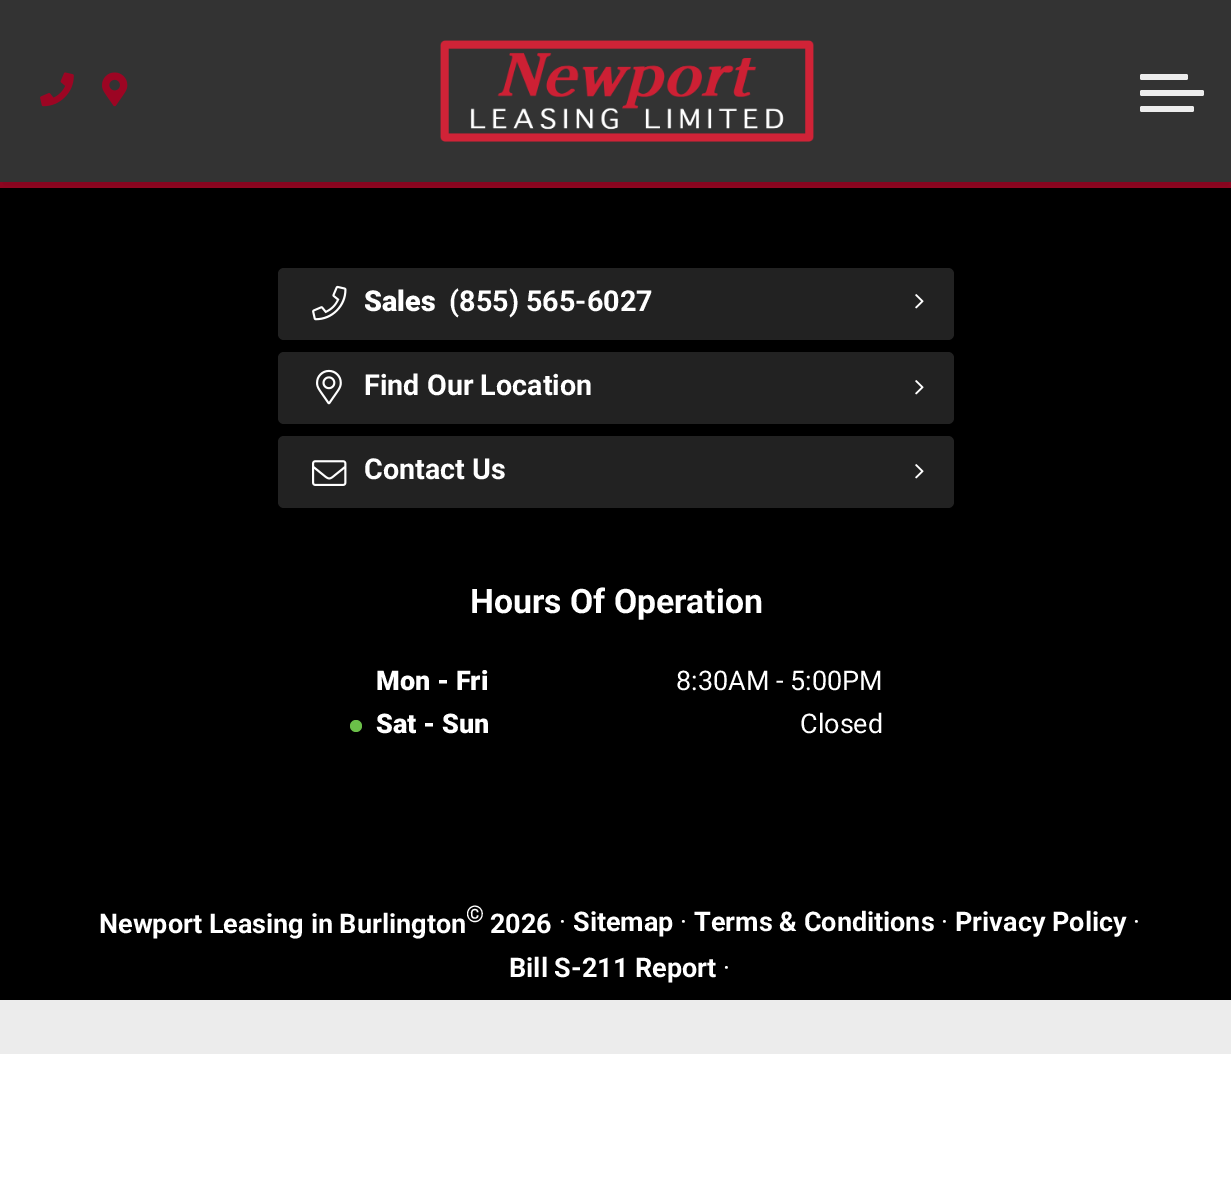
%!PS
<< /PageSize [1231 1192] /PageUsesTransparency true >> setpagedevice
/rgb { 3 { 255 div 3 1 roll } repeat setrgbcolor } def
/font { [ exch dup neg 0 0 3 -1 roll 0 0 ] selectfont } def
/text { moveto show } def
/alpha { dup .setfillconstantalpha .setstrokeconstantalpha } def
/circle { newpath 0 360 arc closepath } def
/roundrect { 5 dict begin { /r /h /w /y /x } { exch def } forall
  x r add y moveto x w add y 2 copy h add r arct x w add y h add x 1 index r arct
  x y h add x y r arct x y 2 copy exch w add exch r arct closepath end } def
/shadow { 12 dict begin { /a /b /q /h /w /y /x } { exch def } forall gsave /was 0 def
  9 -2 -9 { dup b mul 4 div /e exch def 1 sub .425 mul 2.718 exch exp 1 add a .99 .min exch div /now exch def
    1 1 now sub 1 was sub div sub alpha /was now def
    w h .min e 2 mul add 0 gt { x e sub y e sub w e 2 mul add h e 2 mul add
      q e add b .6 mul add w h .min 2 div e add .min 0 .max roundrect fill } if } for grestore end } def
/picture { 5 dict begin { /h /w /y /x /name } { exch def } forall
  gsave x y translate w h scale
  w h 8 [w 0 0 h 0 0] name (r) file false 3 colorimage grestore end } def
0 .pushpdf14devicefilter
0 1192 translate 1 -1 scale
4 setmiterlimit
255 255 255 rgb
0 0 1231 1192 rectfill
156 5 35 rgb
0 182 1231 6 rectfill
0 0 0 rgb
0 188 1231 812 rectfill
0 6 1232 182 0 10 0.2 shadow
51 51 51 rgb
0 0 1231 182 rectfill
(img_01.rgb) 40 72 34 35 picture
(img_02.rgb) 102 72 26 35 picture
(img_03.rgb) 440 40 374 102 picture
236 236 236 rgb
1140 90 64 6 2 roundrect fill
1140 74 48 6 2 roundrect fill
1140 106 54 6 2 roundrect fill
34 34 34 rgb
278 268 676 72 6 roundrect fill
(img_04.rgb) 312 285 35 36 picture
(img_05.rgb) 915 294 9 15 picture
278 352 676 72 6 roundrect fill
(img_06.rgb) 316 369 26 36 picture
(img_05.rgb) 915 380 9 15 picture
278 436 676 72 6 roundrect fill
(img_07.rgb) 312 460 35 26 picture
(img_05.rgb) 915 464 9 15 picture
107 191 73 rgb
356 726 6 circle fill
236 236 236 rgb
0 1000 1231 54 rectfill
/Roboto-Black 28.75 font
255 255 255 rgb
(Sales) 364 311 text
/Roboto-Bold 28.75 font
(\(855\) 565-6027) 449 311 text
(Find Our Location) 364 395 text
(Contact Us) 364 479 text
/Roboto-Bold 33.75 font
(Hours Of Operation) 470 613 text
/Roboto-Black 27 font
(Mon - Fri) 376 690 text
/Roboto-Regular 27 font
(8:30AM - 5:00PM) 676 690 text
/Roboto-Black 27 font
(Sat - Sun) 376 733 text
/Roboto-Regular 27 font
(Closed) 800 733 text
/Roboto-Bold 27 font
(Newport Leasing in Burlington) 99 933 text
/Roboto-Bold 23 font
(©) 466 922 text
/Roboto-Bold 27 font
(2026) 490 933 text
/Roboto-Regular 27 font
(·) 559 931 text
/Roboto-Bold 27 font
(Sitemap) 573 931 text
/Roboto-Regular 27 font
(·) 680 931 text
/Roboto-Bold 27 font
(Terms & Conditions) 694 931 text
/Roboto-Regular 27 font
(·) 941 931 text
/Roboto-Bold 27 font
(Privacy Policy) 955 931 text
/Roboto-Regular 27 font
(·) 1133 931 text
/Roboto-Bold 27 font
(Bill S-211 Report) 509 977 text
/Roboto-Regular 27 font
(·) 723 977 text
.poppdf14devicefilter showpage
